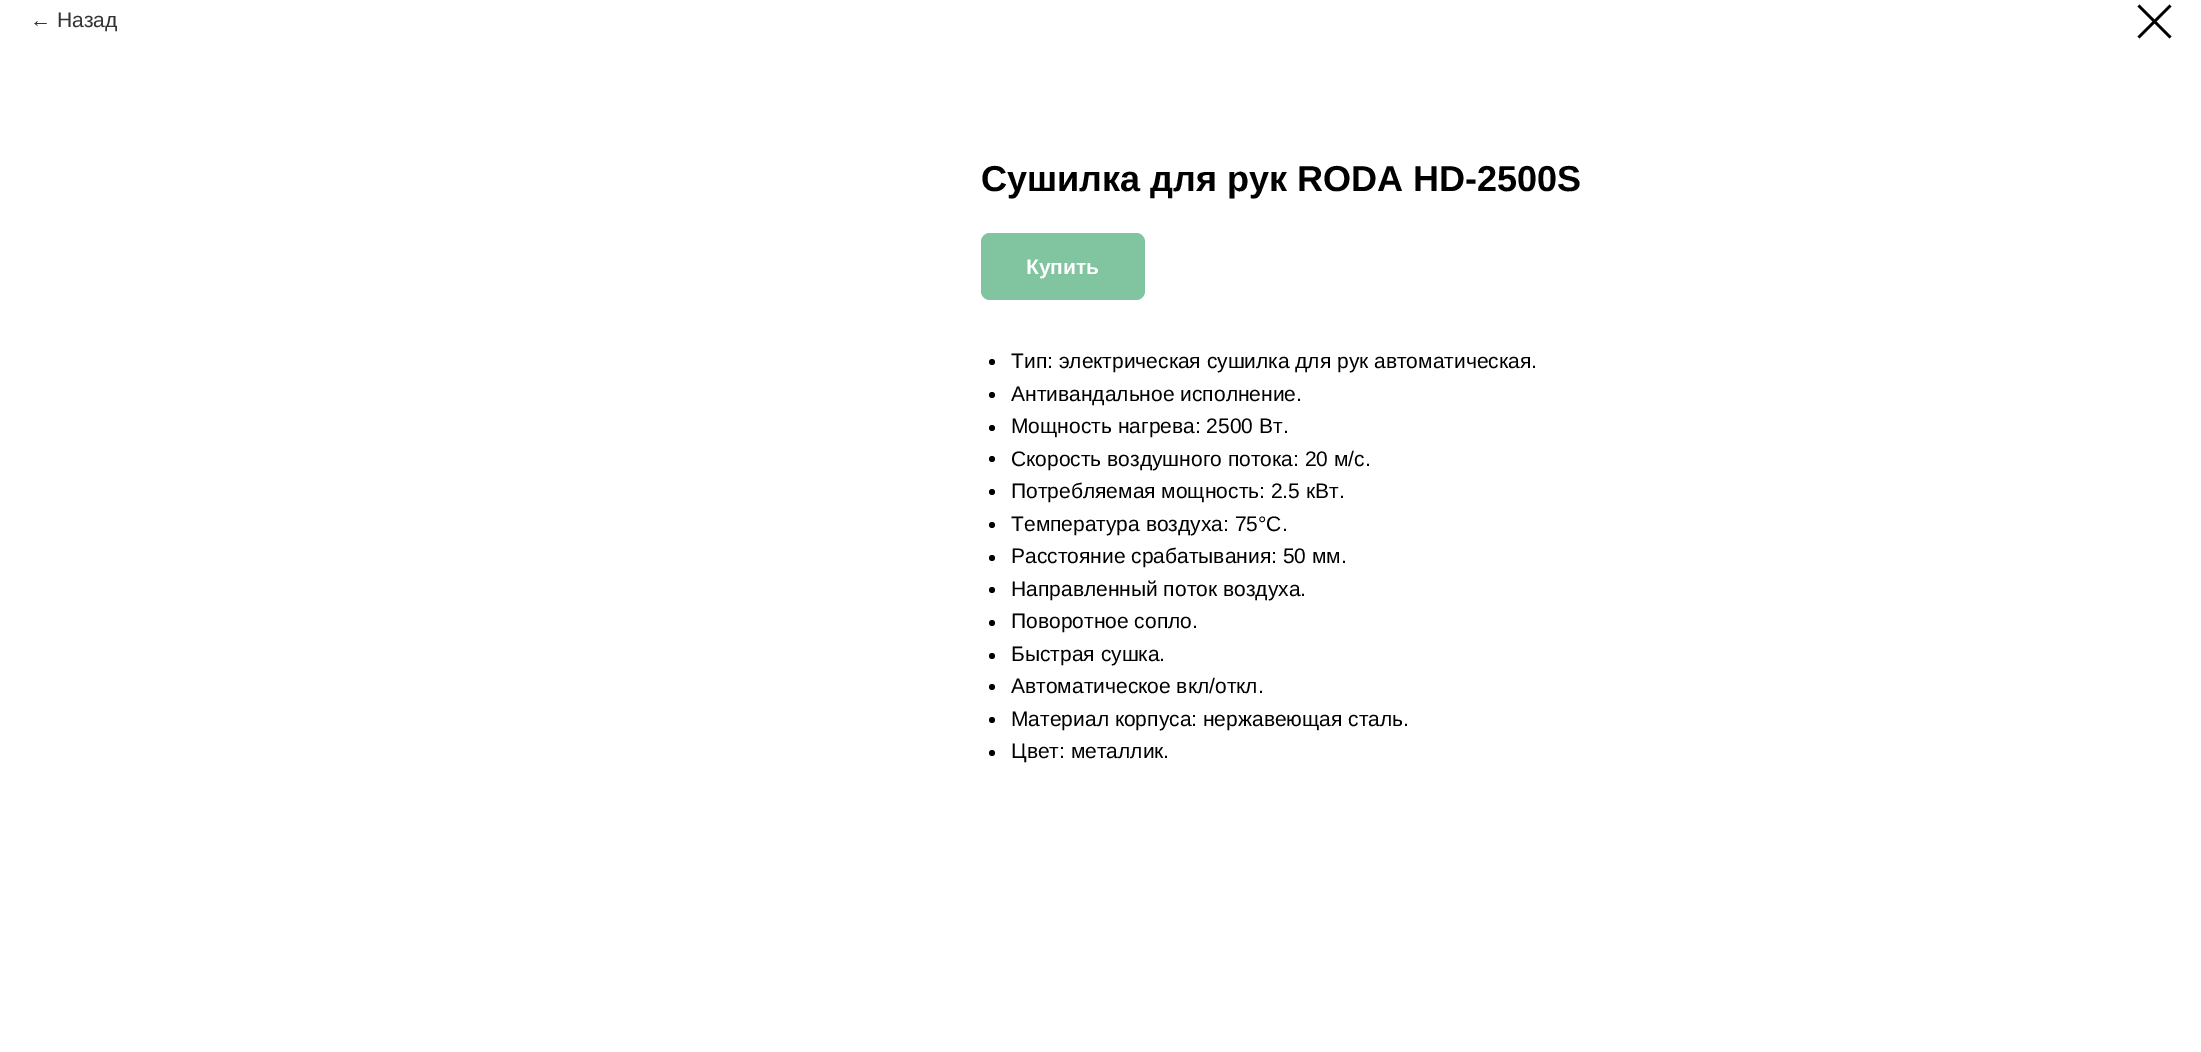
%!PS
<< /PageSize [2201 1052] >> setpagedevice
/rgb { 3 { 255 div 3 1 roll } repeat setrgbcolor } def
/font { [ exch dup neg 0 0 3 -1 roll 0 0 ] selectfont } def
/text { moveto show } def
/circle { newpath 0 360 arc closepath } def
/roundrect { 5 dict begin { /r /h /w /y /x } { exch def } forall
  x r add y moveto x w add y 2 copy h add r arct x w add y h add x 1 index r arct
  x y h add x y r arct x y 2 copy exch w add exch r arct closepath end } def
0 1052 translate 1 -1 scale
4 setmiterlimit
255 255 255 rgb
0 0 2201 1052 rectfill
0 0 0 rgb
2137.5 6.5 moveto 2 -2 rlineto 32 32 rlineto -2 2 rlineto closepath eofill
2169.5 4.5 moveto 2 2 rlineto -32 32 rlineto -2 -2 rlineto closepath eofill
128 196 160 rgb
981 233 164 67 9 roundrect fill
0 0 0 rgb
992 362 3 circle fill
992 395 3 circle fill
992 428 3 circle fill
992 459 3 circle fill
992 492 3 circle fill
992 525 3 circle fill
992 558 3 circle fill
992 590 3 circle fill
992 623 3 circle fill
992 656 3 circle fill
992 687 3 circle fill
992 720 3 circle fill
992 753 3 circle fill
/LiberationSans-Regular 21 font
51 51 51 rgb
(← Назад) 30 27 text
/LiberationSans-Bold 36 font
0 0 0 rgb
(Сушилка для рук RODA HD-2500S) 981 191 text
/LiberationSans-Bold 21 font
255 255 255 rgb
(Купить) 1026 274 text
/LiberationSans-Regular 21 font
0 0 0 rgb
(Тип: электрическая сушилка для рук автоматическая.) 1011 368 text
(Антивандальное исполнение.) 1011 401 text
(Мощность нагрева: 2500 Вт.) 1011 433 text
(Скорость воздушного потока: 20 м/с.) 1011 466 text
(Потребляемая мощность: 2.5 кВт.) 1011 498 text
(Температура воздуха: 75°С.) 1011 531 text
(Расстояние срабатывания: 50 мм.) 1011 563 text
(Направленный поток воздуха.) 1011 596 text
(Поворотное сопло.) 1011 628 text
(Быстрая сушка.) 1011 661 text
(Автоматическое вкл/откл.) 1011 693 text
(Материал корпуса: нержавеющая сталь.) 1011 726 text
(Цвет: металлик.) 1011 758 text
showpage
